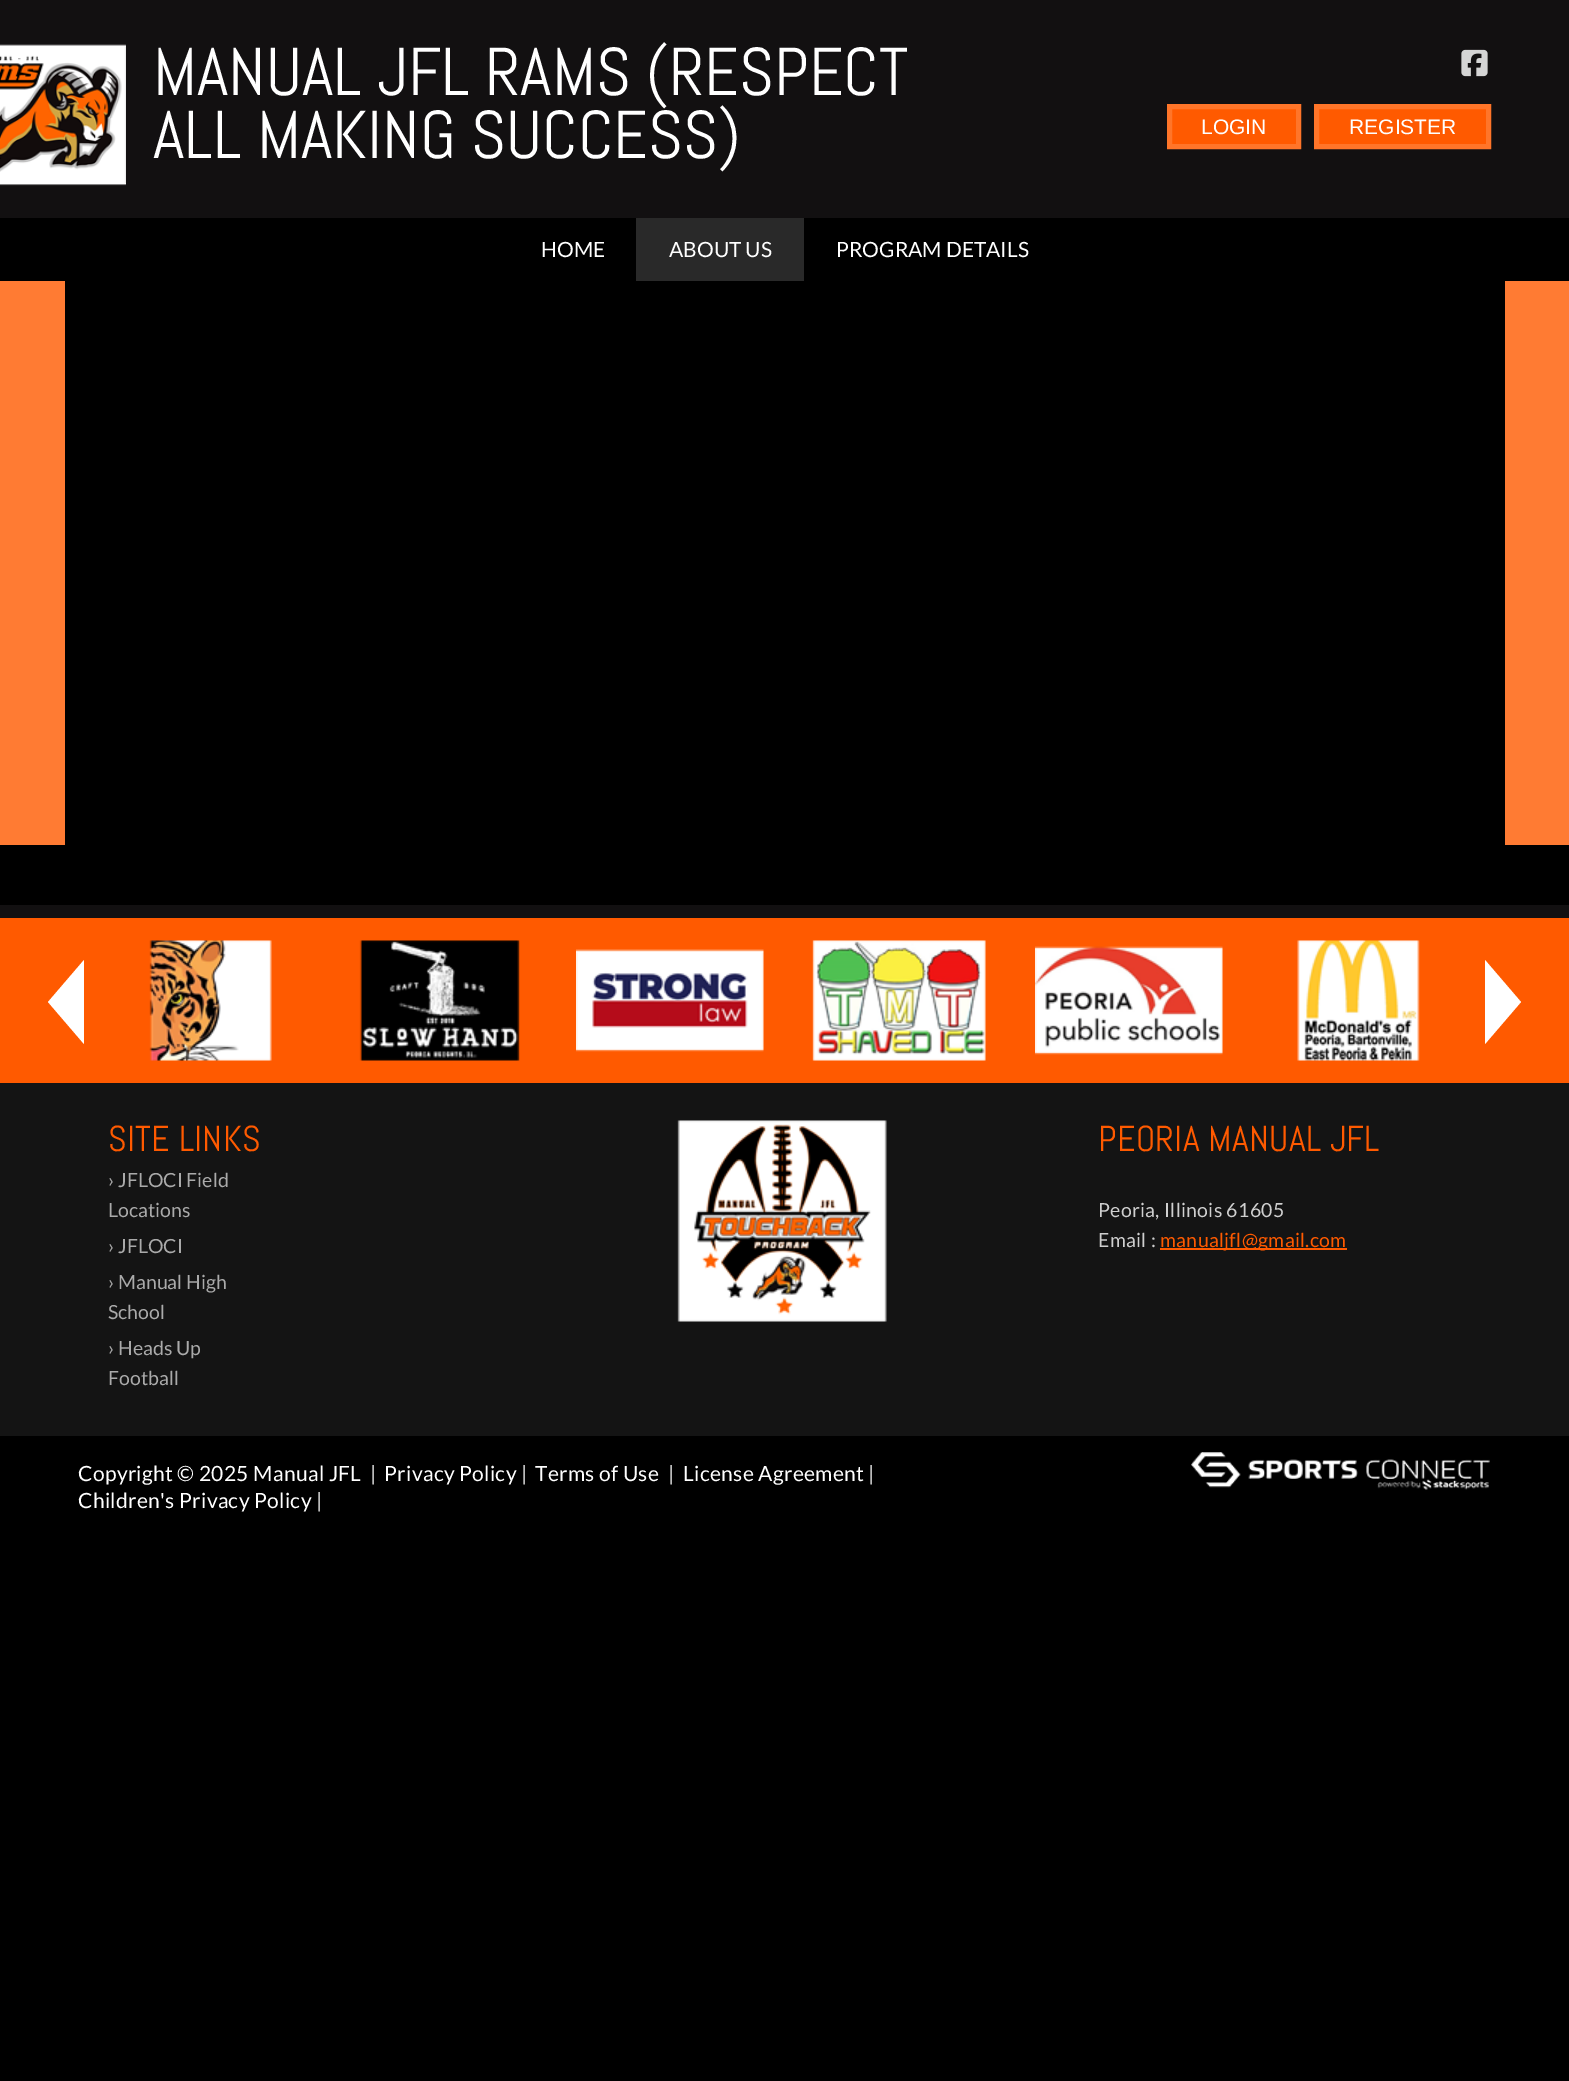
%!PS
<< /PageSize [1569 2081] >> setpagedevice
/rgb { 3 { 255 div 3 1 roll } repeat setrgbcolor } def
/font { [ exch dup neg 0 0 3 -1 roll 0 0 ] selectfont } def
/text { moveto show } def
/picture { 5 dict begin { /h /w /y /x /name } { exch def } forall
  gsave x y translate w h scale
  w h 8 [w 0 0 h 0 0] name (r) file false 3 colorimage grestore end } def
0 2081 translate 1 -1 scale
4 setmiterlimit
0 0 0 rgb
0 0 1569 2081 rectfill
18 16 17 rgb
0 0 1569 918 rectfill
(img_01.rgb) 0 44 126 142 picture
(img_02.rgb) 1461 49 27 28 picture
255 90 0 rgb
1169.5 106.5 moveto 129 0 rlineto 0 40 rlineto -129 0 rlineto closepath gsave fill grestore
255 117 41 rgb
5 setlinewidth
stroke
255 90 0 rgb
1316.5 106.5 moveto 172 0 rlineto 0 40 rlineto -172 0 rlineto closepath gsave fill grestore
255 117 41 rgb
stroke
0 0 0 rgb
0 218 1569 63 rectfill
41 41 41 rgb
636 218 168 63 rectfill
0 0 0 rgb
0 845 1569 60 rectfill
255 123 51 rgb
0 281 65 564 rectfill
1505 281 64 564 rectfill
0 0 0 rgb
65 281 1440 564 rectfill
255 90 0 rgb
0 918 1569 165 rectfill
255 255 255 rgb
84 960 moveto 0 84 rlineto -36 -42 rlineto closepath fill
(img_03.rgb) 149 940 123 121 picture
(img_04.rgb) 359 940 161 121 picture
(img_05.rgb) 576 949 188 103 picture
(img_06.rgb) 812 940 174 121 picture
(img_07.rgb) 1035 946 188 109 picture
(img_08.rgb) 1297 940 123 121 picture
1485 1044 moveto 0 -84 rlineto 36 42 rlineto closepath fill
20 20 20 rgb
0 1083 1569 353 rectfill
(img_09.rgb) 677 1120 210 202 picture
255 90 0 rgb
1160 1248 187 2 rectfill
(img_10.rgb) 1191 1452 299 38 picture
/Abel-Regular 67.5 font
255 255 255 rgb
(MANUAL JFL RAMS \(RESPECT) 153 95 text
(ALL MAKING SUCCESS\)) 153 158 text
/LiberationSans-Regular 21 font
(LOGIN) 1201 134 text
(REGISTER) 1349 134 text
/Lato-Regular 21 font
(HOME) 541 257 text
(ABOUT US) 669 257 text
(PROGRAM DETAILS) 836 257 text
/Abel-Regular 36 font
255 90 0 rgb
108 1151 moveto 0.3 0 (SITE LINKS) ashow
/Lato-Regular 19.5 font
170 170 170 rgb
(› JFLOCI Field) 108 1187 text
(Locations) 108 1217 text
(› JFLOCI) 108 1253 text
(› Manual High) 108 1289 text
(School) 108 1319 text
(› Heads Up) 108 1355 text
(Football) 108 1385 text
/Abel-Regular 36 font
255 90 0 rgb
1098 1151 moveto 0.3 0 (PEORIA MANUAL JFL) ashow
/Lato-Regular 19.5 font
207 207 207 rgb
1098 1217 moveto 0.3 0 (Peoria, Illinois 61605) ashow
1098 1247 moveto 0.3 0 (Email :) ashow
255 90 0 rgb
1160 1247 moveto 0.3 0 (manualjfl@gmail.com) ashow
/Lato-Regular 21 font
255 255 255 rgb
78 1481 moveto 0.3 0 (Copyright © 2025 Manual JFL) ashow
(|) 370 1481 text
384 1481 moveto 0.3 0 (Privacy Policy) ashow
(|) 521 1481 text
535 1481 moveto 0.3 0 (Terms of Use) ashow
668 1481 moveto 0.3 0 (|) ashow
683 1481 moveto 0.3 0 (License Agreement) ashow
(|) 868 1481 text
78 1508 moveto 0.3 0 (Children's Privacy Policy |) ashow
showpage
